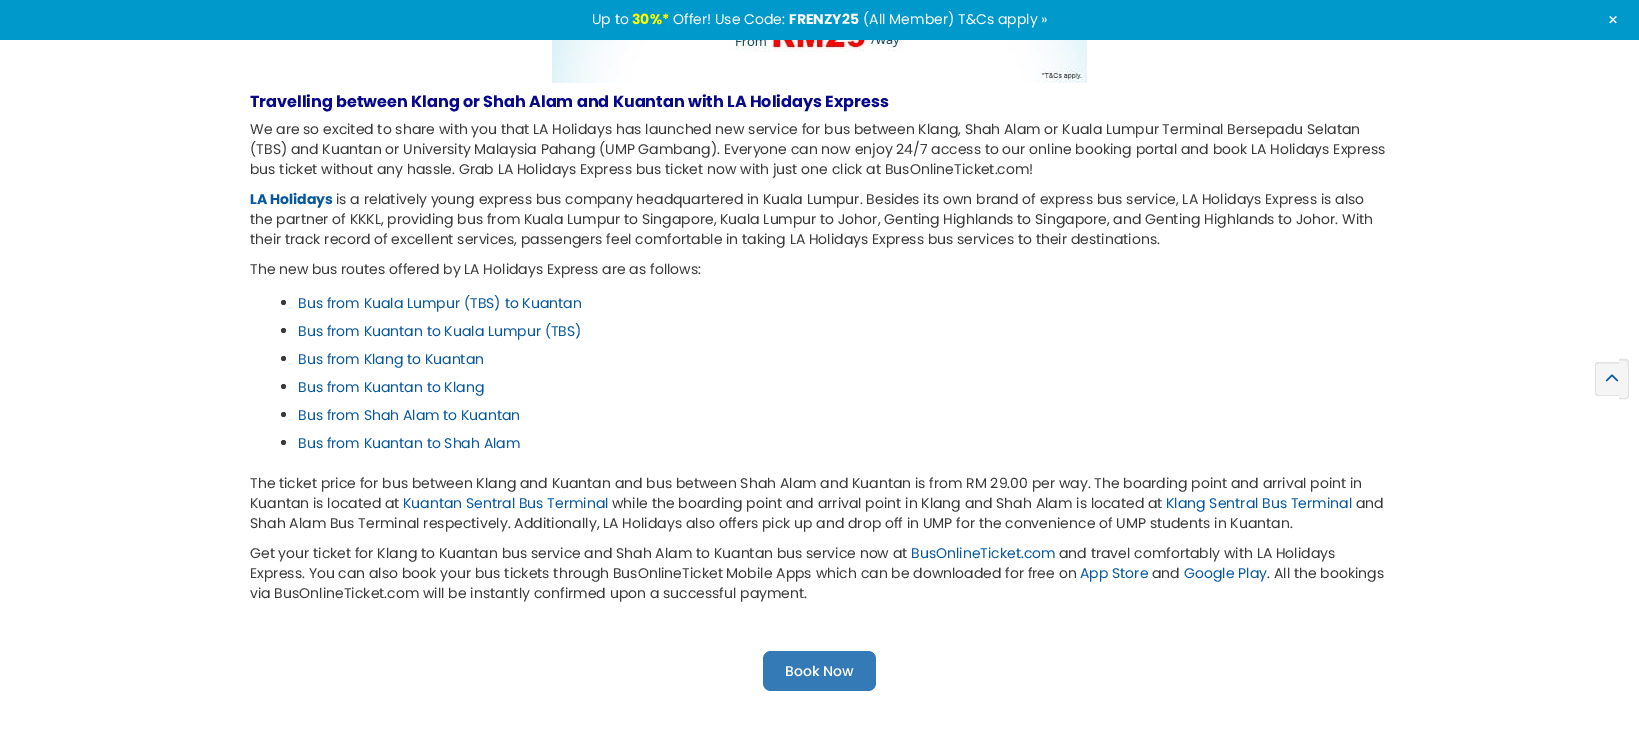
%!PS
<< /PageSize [1639 737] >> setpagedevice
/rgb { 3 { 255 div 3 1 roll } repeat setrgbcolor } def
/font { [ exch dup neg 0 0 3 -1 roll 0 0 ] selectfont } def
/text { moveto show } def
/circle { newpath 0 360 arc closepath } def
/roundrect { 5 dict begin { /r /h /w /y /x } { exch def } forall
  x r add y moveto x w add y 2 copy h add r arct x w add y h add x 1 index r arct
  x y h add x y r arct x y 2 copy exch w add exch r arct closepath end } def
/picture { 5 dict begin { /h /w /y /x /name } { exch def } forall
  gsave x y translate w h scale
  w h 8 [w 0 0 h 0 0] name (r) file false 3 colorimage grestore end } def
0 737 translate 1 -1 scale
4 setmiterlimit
255 255 255 rgb
0 0 1639 737 rectfill
0 153 203 rgb
0 0 1639 40 rectfill
(img_01.rgb) 552 40 535 43 picture
59 58 58 rgb
283.5 302.5 2.5 circle fill
283.5 330.5 2.5 circle fill
283.5 358.5 2.5 circle fill
283.5 386.5 2.5 circle fill
283.5 414.5 2.5 circle fill
283.5 442.5 2.5 circle fill
51 122 183 rgb
763 651 113 40 8 roundrect fill
245 245 245 rgb
1598 362 moveto 21 0 rlineto 0 34 rlineto -21 0 rlineto -1.5 0 -3 -1.5 -3 -3 rcurveto 0 -28 rlineto 0 -1.5 1.5 -3 3 -3 rcurveto closepath fill
233 233 233 rgb
1598 364 moveto 21 0 rlineto 0 -1 rlineto -21 0 rlineto -1 0 -2 1 -2 2 rcurveto 0 1 rlineto 0 -1 1 -2 2 -2 rcurveto closepath fill
227 227 227 rgb
1598 362 moveto 21 0 rlineto 0 34 rlineto -21 0 rlineto -1.5 0 -3 -1.5 -3 -3 rcurveto 0 -28 rlineto 0 -1.5 1.5 -3 3 -3 rcurveto closepath 1598 363 moveto 21 0 rlineto 0 32 rlineto -21 0 rlineto -1 0 -2 -1 -2 -2 rcurveto 0 -28 rlineto 0 -1 1 -2 2 -2 rcurveto closepath eofill
245 245 245 rgb
1619 359 moveto 7 0 rlineto 1.5 0 3 1.5 3 3 rcurveto 0 34 rlineto 0 1.5 -1.5 3 -3 3 rcurveto -7 0 rlineto closepath fill
233 233 233 rgb
1619 361 moveto 9 0 9 -1.5 9 8 rcurveto 0 -10.5 1.5 -9 -9 -9 rcurveto closepath 1628 391 moveto 0 6 rlineto closepath eofill
227 227 227 rgb
1619 359 moveto 9 0 10 -2 10 9 rcurveto 0 22 rlineto 0 11 -1 9 -10 9 rcurveto closepath 1619 360 moveto 9 0 9 -2 9 8 rcurveto 0 22 rlineto 0 10 0 8 -9 8 rcurveto closepath eofill
(img_02.rgb) 1605 374 14 8 picture
/Poppins-Regular 14 font
255 255 255 rgb
(Up to) 592 24 text
/Poppins-Bold 14 font
255 255 0 rgb
(30%*) 632 24 text
/Poppins-Regular 14 font
255 255 255 rgb
(Offer! Use Code:) 673 24 text
/Poppins-Bold 14 font
(FRENZY25) 789 24 text
/Poppins-Regular 14 font
(\(All Member\) T&Cs apply ») 863 24 text
/Poppins-Regular 18 font
gsave 1604 20 translate 45 rotate 0 0 moveto (+) show grestore
/Poppins-Bold 16 font
8 8 138 rgb
(Travelling between Klang or Shah Alam and Kuantan with LA Holidays Express) 250 107 text
/Poppins-Regular 14 font
59 58 58 rgb
(We are so excited to share with you that LA Holidays has launched new service for bus between Klang, Shah Alam or Kuala Lumpur Terminal Bersepadu Selatan) 250 134 text
(\(TBS\) and Kuantan or University Malaysia Pahang \(UMP Gambang\). Everyone can now enjoy 24/7 access to our online booking portal and book LA Holidays Express) 250 154 text
(bus ticket without any hassle. Grab LA Holidays Express bus ticket now with just one click at BusOnlineTicket.com!) 250 174 text
/Poppins-Bold 14 font
8 88 159 rgb
(LA Holidays) 250 204 text
/Poppins-Regular 14 font
59 58 58 rgb
(is a relatively young express bus company headquartered in Kuala Lumpur. Besides its own brand of express bus service, LA Holidays Express is also) 336 204 text
(the partner of KKKL, providing bus from Kuala Lumpur to Singapore, Kuala Lumpur to Johor, Genting Highlands to Singapore, and Genting Highlands to Johor. With) 250 224 text
(their track record of excellent services, passengers feel comfortable in taking LA Holidays Express bus services to their destinations.) 250 244 text
(The new bus routes offered by LA Holidays Express are as follows:) 250 274 text
8 88 159 rgb
(Bus from Kuala Lumpur \(TBS\) to Kuantan) 298 308 text
(Bus from Kuantan to Kuala Lumpur \(TBS\)) 298 336 text
(Bus from Klang to Kuantan) 298 364 text
(Bus from Kuantan to Klang) 298 392 text
(Bus from Shah Alam to Kuantan) 298 420 text
(Bus from Kuantan to Shah Alam) 298 448 text
59 58 58 rgb
(The ticket price for bus between Klang and Kuantan and bus between Shah Alam and Kuantan is from RM 29.00 per way. The boarding point and arrival point in) 250 488 text
(Kuantan is located at) 250 508 text
8 88 159 rgb
(Kuantan Sentral Bus Terminal) 403 508 text
59 58 58 rgb
(while the boarding point and arrival point in Klang and Shah Alam is located at) 612 508 text
8 88 159 rgb
(Klang Sentral Bus Terminal) 1166 508 text
59 58 58 rgb
(and) 1356 508 text
(Shah Alam Bus Terminal respectively. Additionally, LA Holidays also offers pick up and drop off in UMP for the convenience of UMP students in Kuantan.) 250 528 text
(Get your ticket for Klang to Kuantan bus service and Shah Alam to Kuantan bus service now at) 250 558 text
8 88 159 rgb
(BusOnlineTicket.com) 911 558 text
59 58 58 rgb
(and travel comfortably with LA Holidays) 1059 558 text
(Express. You can also book your bus tickets through BusOnlineTicket Mobile Apps which can be downloaded for free on) 250 578 text
8 88 159 rgb
(App Store) 1080 578 text
59 58 58 rgb
(and) 1152 578 text
8 88 159 rgb
(Google Play) 1184 578 text
59 58 58 rgb
(. All the bookings) 1267 578 text
(via BusOnlineTicket.com will be instantly confirmed upon a successful payment.) 250 598 text
/Poppins-Medium 14 font
255 255 255 rgb
(Book Now) 785 676 text
showpage
